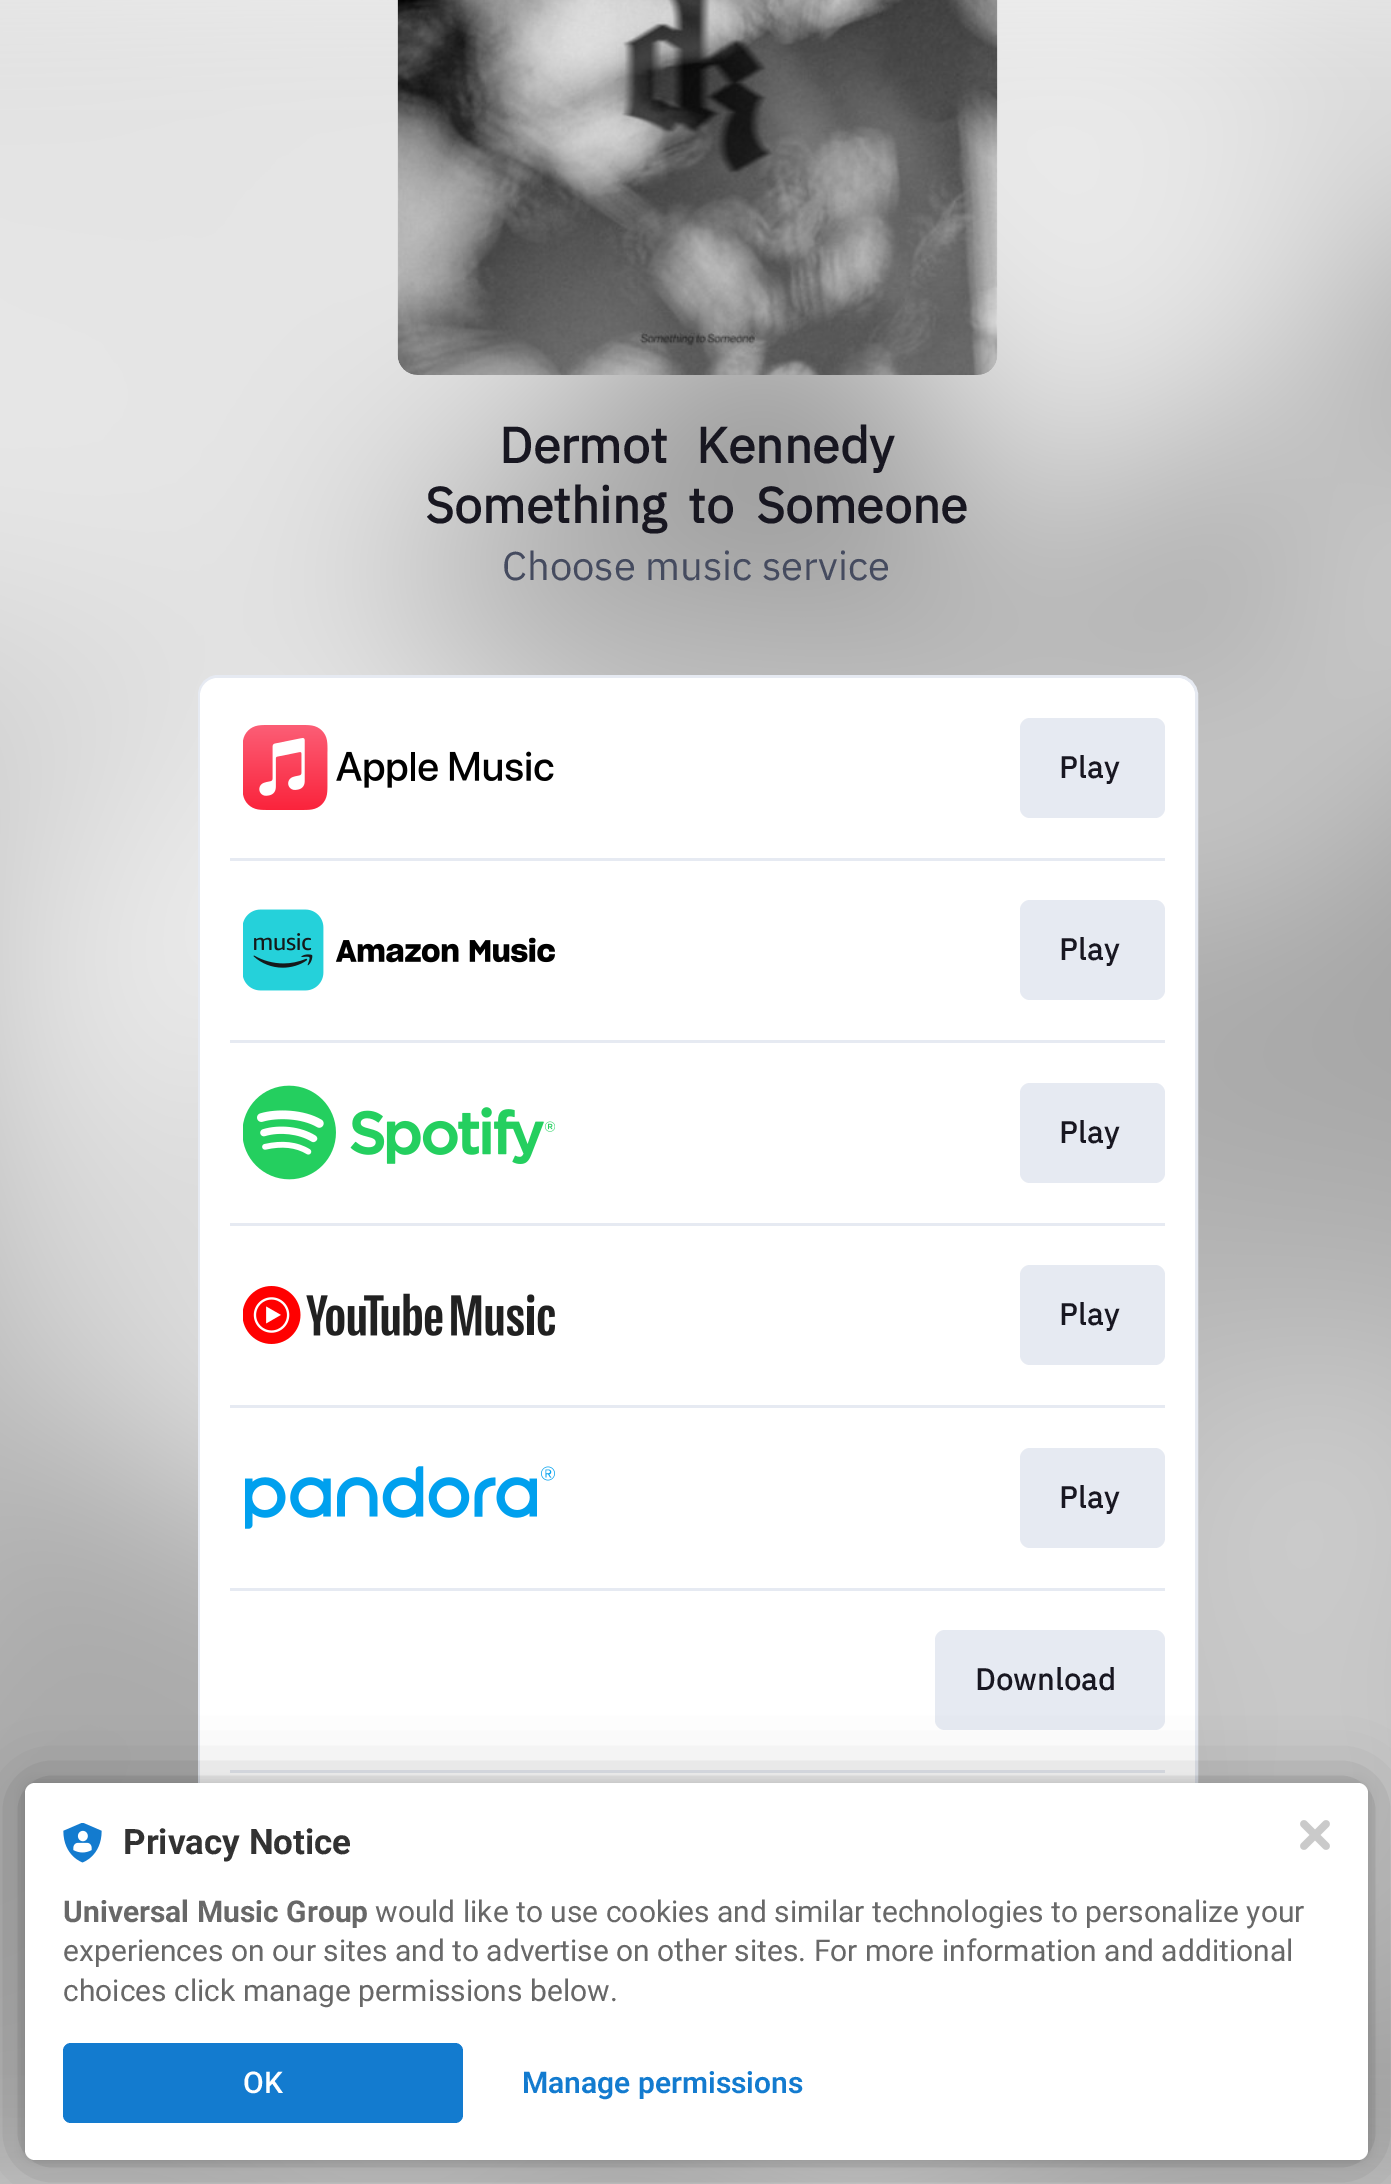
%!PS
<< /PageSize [1391 2184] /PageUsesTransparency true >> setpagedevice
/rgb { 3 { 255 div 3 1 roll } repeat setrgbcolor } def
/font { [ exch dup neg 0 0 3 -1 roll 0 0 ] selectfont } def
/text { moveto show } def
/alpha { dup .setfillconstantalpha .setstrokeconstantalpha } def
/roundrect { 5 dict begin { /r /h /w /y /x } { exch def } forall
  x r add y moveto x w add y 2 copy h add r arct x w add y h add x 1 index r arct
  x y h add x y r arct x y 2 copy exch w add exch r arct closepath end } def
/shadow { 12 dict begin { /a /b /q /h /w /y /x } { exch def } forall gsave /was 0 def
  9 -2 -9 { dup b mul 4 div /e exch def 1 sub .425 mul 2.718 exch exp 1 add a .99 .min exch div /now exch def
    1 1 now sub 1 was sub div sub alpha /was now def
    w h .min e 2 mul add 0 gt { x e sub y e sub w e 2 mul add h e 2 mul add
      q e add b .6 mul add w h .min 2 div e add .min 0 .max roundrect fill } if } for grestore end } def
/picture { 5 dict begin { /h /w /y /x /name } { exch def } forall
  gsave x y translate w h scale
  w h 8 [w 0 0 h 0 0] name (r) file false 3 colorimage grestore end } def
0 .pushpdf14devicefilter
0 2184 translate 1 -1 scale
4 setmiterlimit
255 255 255 rgb
0 0 1391 2184 rectfill
(img_01.rgb) 0 0 1391 2184 picture
(img_02.rgb) 397 0 601 375 picture
199.5 676.5 997 1277 18.5 roundrect gsave fill grestore
230 234 242 rgb
3 setlinewidth
stroke
255 255 255 rgb
200 678 995 1275 18 roundrect fill
(img_03.rgb) 243 725 311 85 picture
230 234 242 rgb
1020 718 145 100 10 roundrect fill
230 858 935 3 rectfill
(img_04.rgb) 243 909 312 82 picture
1020 900 145 100 10 roundrect fill
230 1040 935 3 rectfill
(img_05.rgb) 243 1085 312 95 picture
1020 1083 145 100 10 roundrect fill
230 1223 935 3 rectfill
(img_06.rgb) 243 1286 312 58 picture
1020 1265 145 100 10 roundrect fill
230 1405 935 3 rectfill
(img_07.rgb) 245 1466 310 63 picture
1020 1448 145 100 10 roundrect fill
230 1588 935 3 rectfill
935 1630 230 100 10 roundrect fill
230 1770 935 3 rectfill
0 0 0 rgb
25 1783 1343 377 10 5 0.12 shadow
25 1783 1343 377 10 30 0.3 shadow
255 255 255 rgb
25 1783 1343 377 10 roundrect fill
(img_08.rgb) 63 1823 39 40 picture
19 123 207 rgb
63 2043 400 80 8 roundrect fill
(img_09.rgb) 1300 1820 30 30 picture
/IBMPlexSans-Bold 50 font
24 23 33 rgb
499 463 moveto 17 0 32 (Dermot Kennedy) widthshow
425 523 moveto 10 0 32 (Something to Someone) widthshow
/IBMPlexSans-Regular 40 font
69 75 95 rgb
(Choose music service) 502 580 text
/IBMPlexSans-Bold 30 font
24 23 33 rgb
1059 778 moveto 0.75 0 (Play) ashow
1059 960 moveto 0.75 0 (Play) ashow
1059 1143 moveto 0.75 0 (Play) ashow
1059 1325 moveto 0.75 0 (Play) ashow
1059 1508 moveto 0.75 0 (Play) ashow
975 1690 moveto 0.75 0 (Download) ashow
/Roboto-Bold 35 font
50 50 50 rgb
(Privacy Notice) 123 1854 text
/Roboto-Bold 30 font
104 104 104 rgb
(Universal Music Group) 63 1922 text
/Roboto-Regular 30 font
(would like to use cookies and similar technologies to personalize your) 375 1922 text
(experiences on our sites and to advertise on other sites. For more information and additional) 63 1961 text
(choices click manage permissions below.) 63 2001 text
/Roboto-Medium 30 font
255 255 255 rgb
(OK) 243 2093 text
/Roboto-SemiBold 30 font
19 123 207 rgb
(Manage permissions) 522 2093 text
.poppdf14devicefilter showpage
